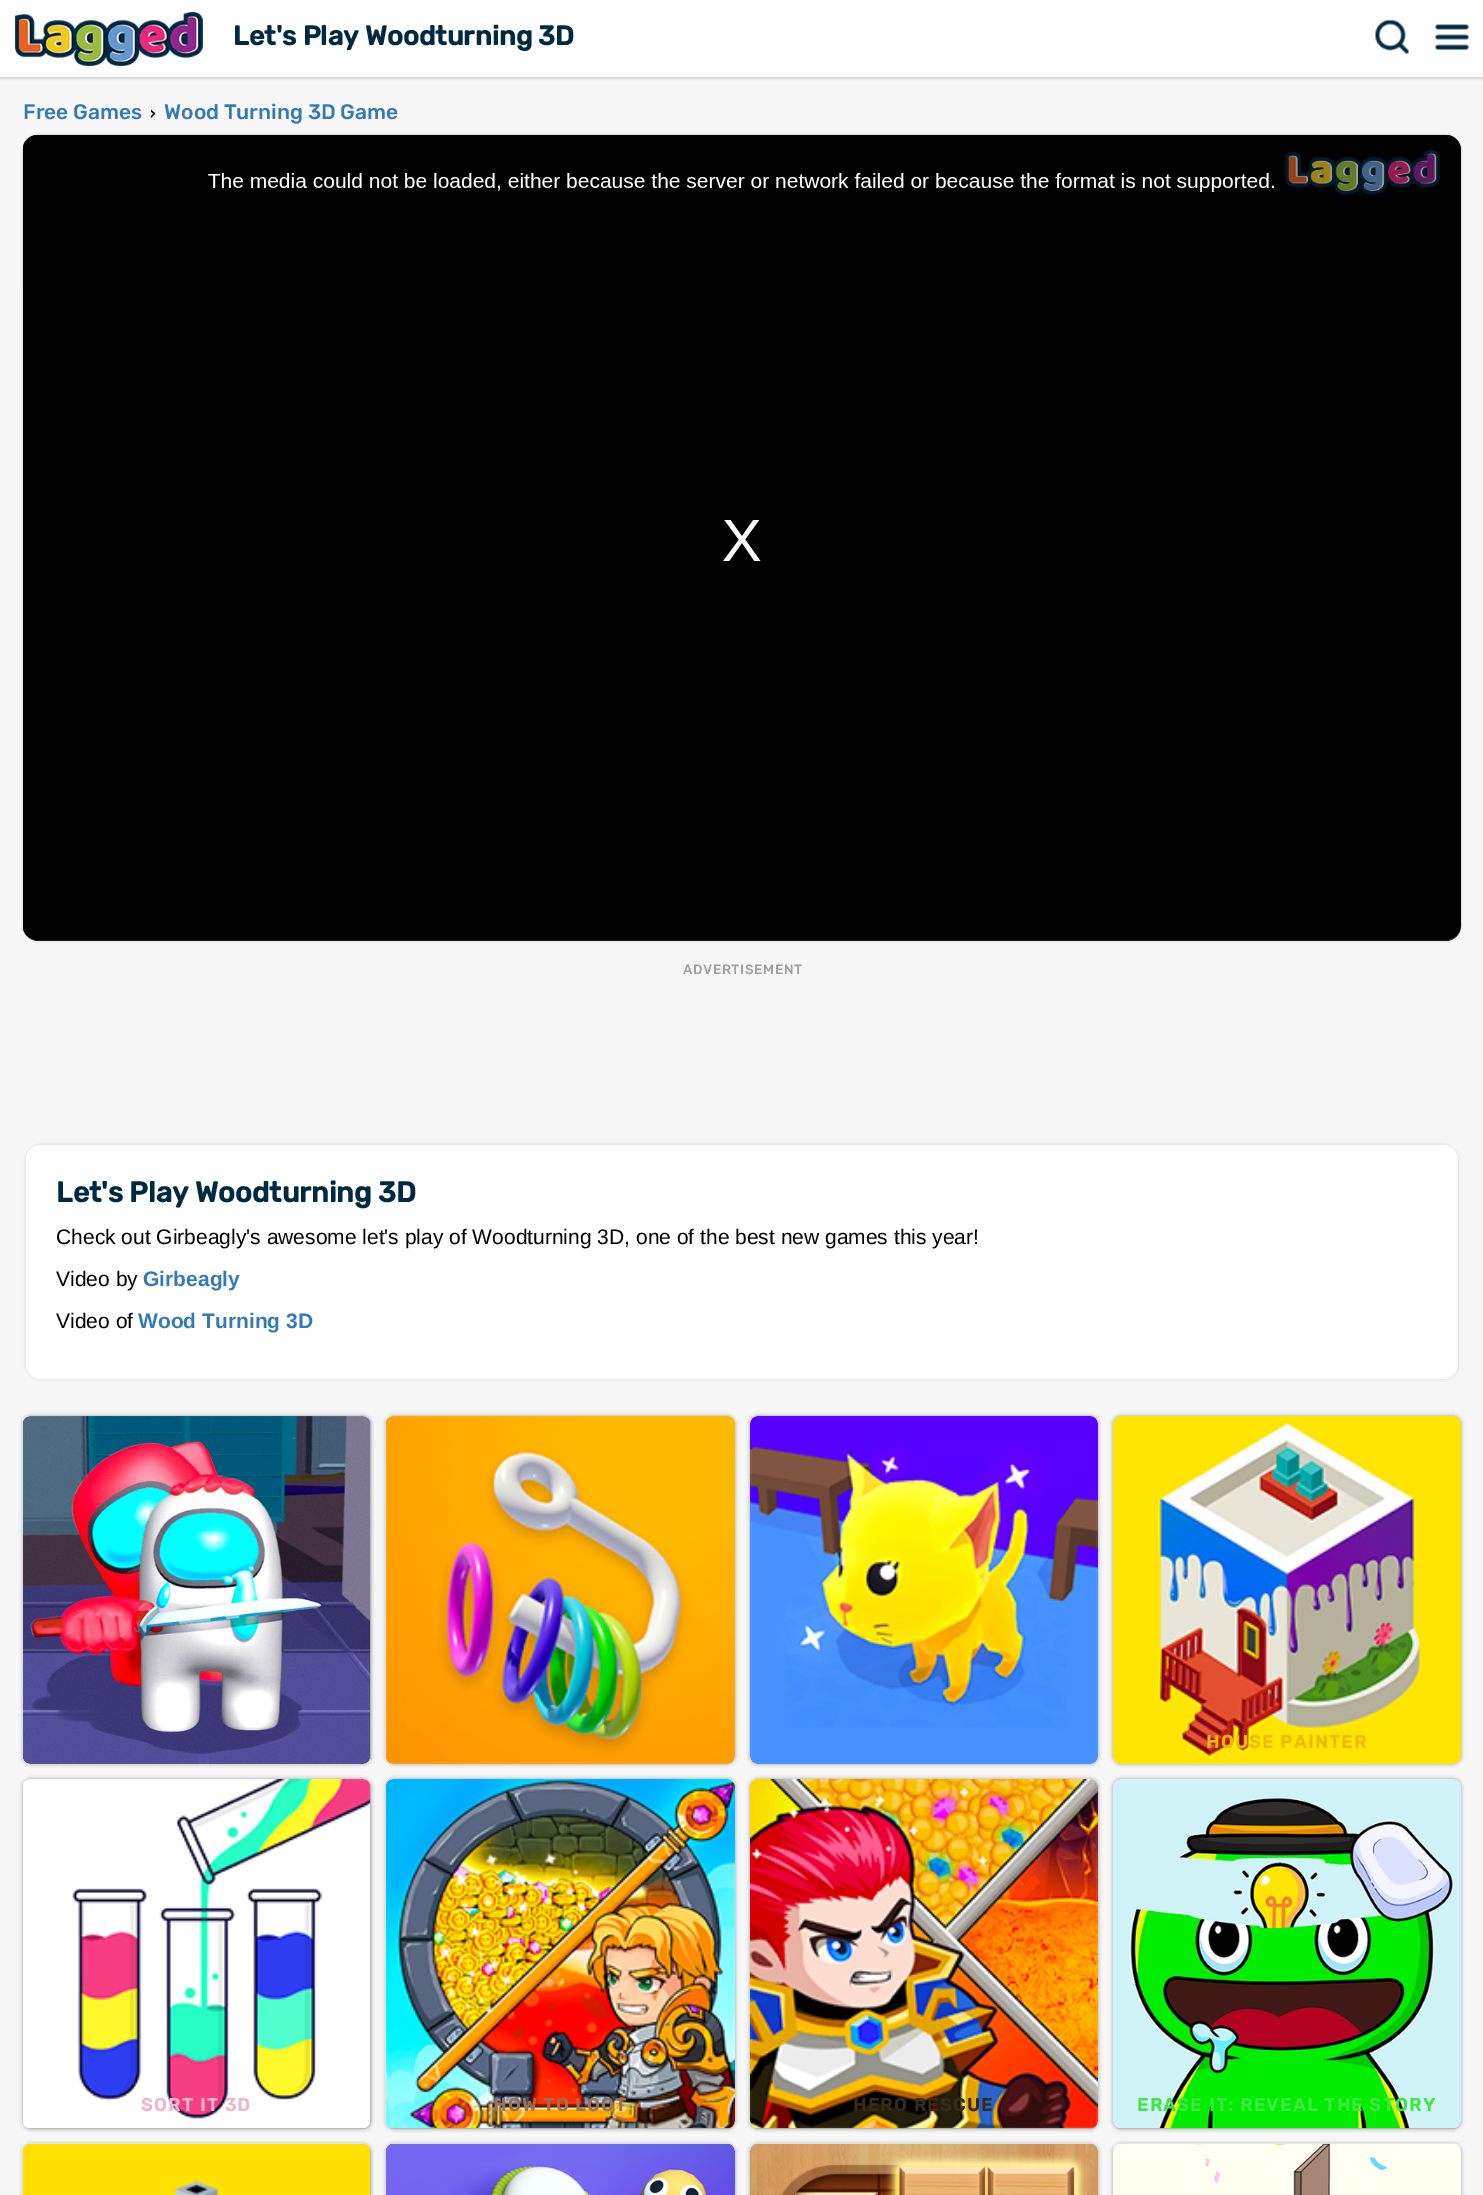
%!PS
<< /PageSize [1483 2195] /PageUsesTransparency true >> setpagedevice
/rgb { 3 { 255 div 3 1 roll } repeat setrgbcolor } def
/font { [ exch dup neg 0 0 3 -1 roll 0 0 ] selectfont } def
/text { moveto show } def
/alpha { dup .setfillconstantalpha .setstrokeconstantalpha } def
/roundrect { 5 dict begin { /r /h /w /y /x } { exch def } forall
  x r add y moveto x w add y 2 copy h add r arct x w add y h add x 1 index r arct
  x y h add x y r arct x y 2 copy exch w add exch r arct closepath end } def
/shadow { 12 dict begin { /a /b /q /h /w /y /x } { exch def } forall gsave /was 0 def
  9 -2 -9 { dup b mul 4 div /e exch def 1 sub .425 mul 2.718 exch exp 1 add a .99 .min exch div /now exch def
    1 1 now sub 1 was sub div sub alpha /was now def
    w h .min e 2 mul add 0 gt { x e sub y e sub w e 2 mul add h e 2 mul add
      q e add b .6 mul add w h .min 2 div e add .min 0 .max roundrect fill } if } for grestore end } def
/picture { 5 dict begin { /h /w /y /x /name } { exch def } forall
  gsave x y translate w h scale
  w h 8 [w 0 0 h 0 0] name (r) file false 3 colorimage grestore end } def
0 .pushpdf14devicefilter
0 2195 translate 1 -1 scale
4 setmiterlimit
247 247 247 rgb
0 0 1483 2195 rectfill
0 0 0 rgb
-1 -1 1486 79 0 1.5 0.2 shadow
255 255 255 rgb
0 0 1483 77 rectfill
(img_01.rgb) 15 12 188 54 picture
(img_02.rgb) 1375 19 34 35 picture
(img_03.rgb) 1435 24 34 26 picture
gsave
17 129 moveto 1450 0 rlineto 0 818 rlineto -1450 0 rlineto closepath 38 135 moveto 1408 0 rlineto 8.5 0 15 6.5 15 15 rcurveto 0 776 rlineto 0 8.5 -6.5 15 -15 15 rcurveto -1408 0 rlineto -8.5 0 -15 -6.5 -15 -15 rcurveto 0 -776 rlineto 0 -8.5 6.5 -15 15 -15 rcurveto closepath eoclip newpath
0 0 0 rgb
23 135 1438 806 15 1.5 0.15 shadow
grestore
0 0 0 rgb
23 135 1438 806 15 roundrect fill
(img_04.rgb) 22 135 1439 806 picture
26 1145 1432 234 15 1.5 0.15 shadow
255 255 255 rgb
26 1145 1432 234 15 roundrect fill
0 0 0 rgb
23 1416 348 348 8 2 0.35 shadow
0.18 alpha
23 1416 348 348 8 roundrect fill
1 alpha
(img_05.rgb) 22 1416 349 348 picture
386 1416 349 348 8 2 0.35 shadow
0.18 alpha
386 1416 349 348 8 roundrect fill
1 alpha
(img_06.rgb) 385 1416 350 348 picture
750 1416 348 348 8 2 0.35 shadow
0.18 alpha
750 1416 348 348 8 roundrect fill
1 alpha
(img_07.rgb) 750 1416 348 348 picture
1113 1416 348 348 8 2 0.35 shadow
0.18 alpha
1113 1416 348 348 8 roundrect fill
1 alpha
(img_08.rgb) 1113 1416 348 348 picture
23 1779 348 350 8 2 0.35 shadow
0.18 alpha
23 1779 348 350 8 roundrect fill
1 alpha
(img_09.rgb) 23 1779 348 350 picture
386 1779 349 350 8 2 0.35 shadow
0.18 alpha
386 1779 349 350 8 roundrect fill
1 alpha
(img_10.rgb) 385 1779 350 350 picture
750 1779 348 350 8 2 0.35 shadow
0.18 alpha
750 1779 348 350 8 roundrect fill
1 alpha
(img_11.rgb) 750 1779 348 350 picture
1113 1779 348 350 8 2 0.35 shadow
0.18 alpha
1113 1779 348 350 8 roundrect fill
1 alpha
(img_12.rgb) 1113 1779 348 350 picture
23 2144 348 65 8 2 0.35 shadow
0.18 alpha
23 2144 348 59 8 roundrect fill
1 alpha
(img_13.rgb) 22 2143 349 52 picture
386 2144 349 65 8 2 0.35 shadow
0.18 alpha
386 2144 349 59 8 roundrect fill
1 alpha
(img_14.rgb) 385 2143 350 52 picture
750 2144 348 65 8 2 0.35 shadow
0.18 alpha
750 2144 348 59 8 roundrect fill
1 alpha
(img_15.rgb) 750 2143 348 52 picture
1113 2144 348 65 8 2 0.35 shadow
0.18 alpha
1113 2144 348 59 8 roundrect fill
1 alpha
(img_16.rgb) 1113 2143 348 52 picture
/Rubik-Bold 27 font
0 42 65 rgb
(Let's Play Woodturning 3D) 233 45 text
/Rubik-Medium 21 font
51 122 183 rgb
(Free Games) 23 119 text
/Rubik-Medium 16 font
0 0 0 rgb
(›) 150 119 text
/Rubik-Medium 21 font
51 122 183 rgb
(Wood Turning 3D Game) 164 119 text
/Rubik-Medium 13.5 font
160 160 160 rgb
683 974 moveto 0.6 0 (ADVERTISEMENT) ashow
/Rubik-Bold 28.5 font
0 42 65 rgb
(Let's Play Woodturning 3D) 56 1202 text
/LiberationSans-Regular 21 font
0 0 0 rgb
(Check out Girbeagly's awesome let's play of Woodturning 3D, one of the best new games this year!) 56 1244 text
(Video by) 56 1286 text
/LiberationSans-Bold 21 font
51 122 183 rgb
(Girbeagly) 143 1286 text
/LiberationSans-Regular 21 font
0 0 0 rgb
(Video of) 56 1328 text
/LiberationSans-Bold 21 font
51 122 183 rgb
(Wood Turning 3D) 138 1328 text
/Rubik-Bold 18 font
238 186 6 rgb
1206 1748 moveto 1.5 0 (HOUSE PAINTER) ashow
239 183 206 rgb
141 2111 moveto 1.5 0 (SORT IT 3D) ashow
159 112 80 rgb
493 2111 moveto 1.5 0 (HOW TO LOOT) ashow
51 44 28 rgb
853 2111 moveto 1.5 0 (HERO RESCUE) ashow
63 229 66 rgb
1137 2111 moveto 1.5 0 (ERASE IT: REVEAL THE STORY) ashow
.poppdf14devicefilter showpage
